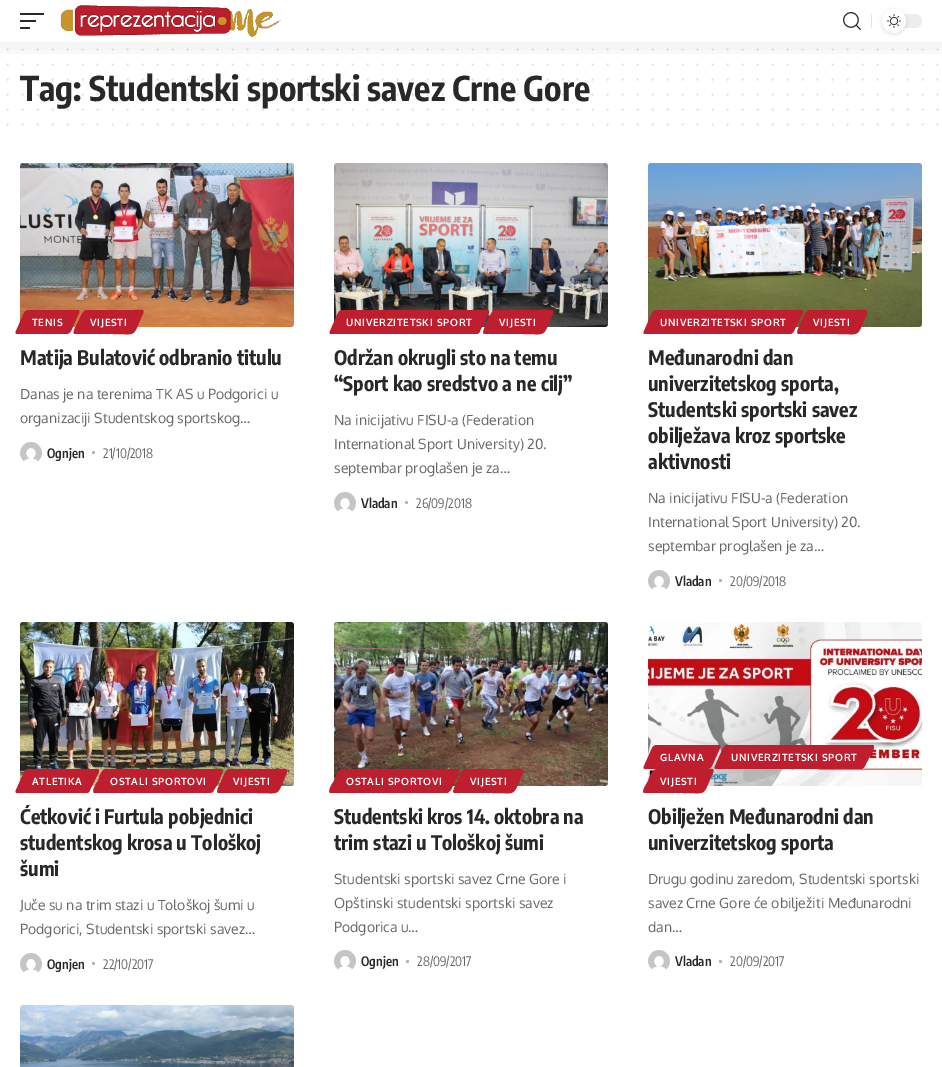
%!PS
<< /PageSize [942 1067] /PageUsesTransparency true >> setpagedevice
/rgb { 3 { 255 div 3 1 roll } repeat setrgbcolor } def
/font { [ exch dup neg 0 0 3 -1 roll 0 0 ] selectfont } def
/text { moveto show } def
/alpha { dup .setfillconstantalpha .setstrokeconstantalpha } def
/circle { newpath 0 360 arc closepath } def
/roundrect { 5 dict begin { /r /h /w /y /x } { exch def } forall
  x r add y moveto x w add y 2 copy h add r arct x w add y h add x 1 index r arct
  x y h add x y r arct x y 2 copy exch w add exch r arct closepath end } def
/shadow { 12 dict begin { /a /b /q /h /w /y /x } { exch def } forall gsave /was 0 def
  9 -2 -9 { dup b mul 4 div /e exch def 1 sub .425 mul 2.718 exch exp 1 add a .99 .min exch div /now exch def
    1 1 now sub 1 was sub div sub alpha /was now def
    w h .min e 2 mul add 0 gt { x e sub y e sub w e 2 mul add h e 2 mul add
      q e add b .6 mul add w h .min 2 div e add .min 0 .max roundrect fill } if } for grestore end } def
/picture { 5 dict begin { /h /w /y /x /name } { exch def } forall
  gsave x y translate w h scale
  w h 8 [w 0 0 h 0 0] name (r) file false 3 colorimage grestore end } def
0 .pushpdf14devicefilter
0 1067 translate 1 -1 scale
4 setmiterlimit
255 255 255 rgb
0 0 942 1067 rectfill
223 223 223 rgb
2 setlinewidth
1 setlinecap
[0 15] 0 setdash
7.5 49.5 moveto 930.2 0 rlineto stroke
7.5 64.5 moveto 930.2 0 rlineto stroke
7.5 124.5 moveto 930.2 0 rlineto stroke
(img_04.rgb) 20 163 274 164 picture
190 30 45 rgb
29 310 moveto 49 0 rlineto 1 0 2 1 1 3 rcurveto -8 18 rlineto -1 2 -3 3 -5 3 rcurveto -49 0 rlineto -1 0 -2 -1 -1 -3 rcurveto 8 -18 rlineto 1 -2 3 -3 5 -3 rcurveto closepath fill
87 310 moveto 46 0 rlineto 9 0 13 -2 9 6 rcurveto -10 22 -4 18 -30 18 rcurveto -37 0 rlineto -4 0 2 -10 3 -12 rcurveto 2 -3 4 -12 9 -12 rcurveto closepath fill
(img_05.rgb) 20 442 22 20 picture
179 179 179 rgb
93.5 452.5 1.5 circle fill
(img_06.rgb) 334 163 274 164 picture
190 30 45 rgb
343 310 moveto 144 0 rlineto 2 0 2 1 2 3 rcurveto -9 18 rlineto 0 2 -2 3 -4 3 rcurveto -145 0 rlineto -1 0 -2 -1 -1 -3 rcurveto 8 -18 rlineto 1 -2 3 -3 5 -3 rcurveto closepath fill
496 310 moveto 46 0 rlineto 10 0 14 -2 10 6 rcurveto -10 22 -4 18 -30 18 rcurveto -37 0 rlineto -5 0 2 -10 2 -12 rcurveto 2 -3 4 -12 9 -12 rcurveto closepath fill
(img_07.rgb) 334 492 22 20 picture
179 179 179 rgb
406.5 502.5 1.5 circle fill
(img_08.rgb) 648 163 274 164 picture
190 30 45 rgb
657 310 moveto 144 0 rlineto 2 0 2 1 2 3 rcurveto -9 18 rlineto -1 2 -3 3 -4 3 rcurveto -145 0 rlineto -1 0 -2 -1 -1 -3 rcurveto 8 -18 rlineto 1 -2 3 -3 5 -3 rcurveto closepath fill
810 310 moveto 46 0 rlineto 10 0 13 -2 10 6 rcurveto -10 22 -4 18 -30 18 rcurveto -37 0 rlineto -5 0 2 -10 2 -12 rcurveto 2 -3 4 -12 9 -12 rcurveto closepath fill
(img_05.rgb) 648 570 22 20 picture
179 179 179 rgb
720.5 580.5 1.5 circle fill
(img_09.rgb) 20 622 274 164 picture
190 30 45 rgb
29 769 moveto 68 0 rlineto 2 0 2 1 2 3 rcurveto -9 18 rlineto 0 2 -2 3 -4 3 rcurveto -69 0 rlineto -1 0 -2 -1 -1 -3 rcurveto 8 -18 rlineto 1 -2 3 -3 5 -3 rcurveto closepath fill
106 769 moveto 116 0 rlineto 3 2 -6 18 -8 21 rcurveto 0 1 -2 3 -4 3 rcurveto -115 0 rlineto -5 0 2 -11 3 -12 rcurveto 1 -3 3 -12 8 -12 rcurveto closepath fill
230 769 moveto 46 0 rlineto 10 0 13 -2 10 6 rcurveto -10 22 -4 18 -30 18 rcurveto -37 0 rlineto -5 0 2 -10 2 -12 rcurveto 2 -3 4 -12 9 -12 rcurveto closepath fill
(img_05.rgb) 20 953 22 20 picture
179 179 179 rgb
93.5 963.5 1.5 circle fill
(img_10.rgb) 334 622 274 164 picture
190 30 45 rgb
343 769 moveto 116 0 rlineto 2 2 -7 18 -8 21 rcurveto -1 1 -3 3 -4 3 rcurveto -116 0 rlineto -5 0 2 -11 3 -12 rcurveto 1 -3 4 -12 9 -12 rcurveto closepath fill
466 769 moveto 47 0 rlineto 9 0 13 -2 9 6 rcurveto -10 22 -4 18 -30 18 rcurveto -37 0 rlineto -5 0 2 -10 3 -12 rcurveto 1 -3 4 -12 8 -12 rcurveto closepath fill
(img_05.rgb) 334 950 22 20 picture
179 179 179 rgb
407.5 961.5 1.5 circle fill
(img_11.rgb) 648 622 274 164 picture
190 30 45 rgb
657 745 moveto 61 0 rlineto 2 0 3 1 2 3 rcurveto -8 18 rlineto -1 2 -3 3 -5 3 rcurveto -62 0 rlineto -1 0 -2 -1 -1 -3 rcurveto 8 -18 rlineto 1 -2 3 -3 5 -3 rcurveto closepath fill
727 745 moveto 145 0 rlineto 2 0 2 1 2 3 rcurveto -9 18 rlineto -1 2 -3 3 -4 3 rcurveto -145 0 rlineto -1 0 -2 -1 -1 -3 rcurveto 8 -18 rlineto 1 -2 3 -3 4 -3 rcurveto closepath fill
657 769 moveto 46 0 rlineto 9 0 13 -2 9 6 rcurveto -10 22 -4 18 -30 18 rcurveto -37 0 rlineto -5 0 2 -10 3 -12 rcurveto 1 -3 4 -12 9 -12 rcurveto closepath fill
(img_05.rgb) 648 950 22 20 picture
179 179 179 rgb
720.5 961.5 1.5 circle fill
(img_12.rgb) 20 1005 274 62 picture
/EncodeSansCondensed-Bold 34 font
40 40 40 rgb
(Tag: Studentski sportski savez Crne Gore) 20 101 text
0.15 alpha
7.5 79.5 moveto 930.2 0 rlineto stroke
gsave
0 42 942 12 rectclip
1 alpha
0 0 0 rgb
0 4 942 42 0 15 0.07 shadow
grestore
1 alpha
237 237 237 rgb
882 14 40 14 7 roundrect fill
0 0 0 rgb
882 10 24 24 12 2 0.12 shadow
255 255 255 rgb
894 21 12 circle fill
(img_03.rgb) 887 14 14 14 picture
228 228 228 rgb
871 14 1 14 rectfill
(img_02.rgb) 843 12 18 18 picture
40 40 40 rgb
20 27 10 2 1 roundrect fill
20 20 16 2 1 roundrect fill
20 13 24 2 1 roundrect fill
(img_01.rgb) 61 5 220 32 picture
223 223 223 rgb
7.5 109.5 moveto 930.2 0 rlineto stroke
0.15 alpha
40 40 40 rgb
7.5 94.5 moveto 930.2 0 rlineto stroke
/Oxygen-Bold 10 font
1 alpha
255 255 255 rgb
32 326 moveto 0.7 0 (TENIS) ashow
90 326 moveto 0.7 0 (VIJESTI) ashow
/EncodeSansCondensed-Bold 20 font
40 40 40 rgb
(Matija Bulatović odbranio titulu) 20 365 text
/Oxygen-Regular 14 font
102 102 102 rgb
(Danas je na terenima TK AS u Podgorici u) 20 399 text
(organizaciji Studentskog sportskog…) 20 423 text
/EncodeSansCondensed-SemiBold 13 font
40 40 40 rgb
(Ognjen) 47 458 text
/EncodeSansCondensed-Regular 13 font
102 102 102 rgb
(21/10/2018) 103 458 text
/Oxygen-Bold 10 font
255 255 255 rgb
346 326 moveto 0.7 0 (UNIVERZITETSKI SPORT) ashow
499 326 moveto 0.7 0 (VIJESTI) ashow
/EncodeSansCondensed-Bold 20 font
40 40 40 rgb
(Održan okrugli sto na temu) 334 365 text
(“Sport kao sredstvo a ne cilj”) 334 391 text
/Oxygen-Regular 14 font
102 102 102 rgb
(Na inicijativu FISU-a \(Federation) 334 425 text
(International Sport University\) 20.) 334 449 text
(septembar proglašen je za…) 334 473 text
/EncodeSansCondensed-SemiBold 13 font
40 40 40 rgb
(Vladan) 361 508 text
/EncodeSansCondensed-Regular 13 font
102 102 102 rgb
(26/09/2018) 416 508 text
/Oxygen-Bold 10 font
255 255 255 rgb
660 326 moveto 0.7 0 (UNIVERZITETSKI SPORT) ashow
813 326 moveto 0.7 0 (VIJESTI) ashow
/EncodeSansCondensed-Bold 20 font
40 40 40 rgb
(Međunarodni dan) 648 365 text
(univerzitetskog sporta,) 648 391 text
(Studentski sportski savez) 648 417 text
(obilježava kroz sportske) 648 443 text
(aktivnosti) 648 469 text
/Oxygen-Regular 14 font
102 102 102 rgb
(Na inicijativu FISU-a \(Federation) 648 503 text
(International Sport University\) 20.) 648 527 text
(septembar proglašen je za…) 648 551 text
/EncodeSansCondensed-SemiBold 13 font
40 40 40 rgb
(Vladan) 675 586 text
/EncodeSansCondensed-Regular 13 font
102 102 102 rgb
(20/09/2018) 730 586 text
/Oxygen-Bold 10 font
255 255 255 rgb
32 785 moveto 0.7 0 (ATLETIKA) ashow
110 785 moveto 0.7 0 (OSTALI SPORTOVI) ashow
233 785 moveto 0.7 0 (VIJESTI) ashow
/EncodeSansCondensed-Bold 20 font
40 40 40 rgb
(Ćetković i Furtula pobjednici) 20 824 text
(studentskog krosa u Tološkoj) 20 850 text
(šumi) 20 876 text
/Oxygen-Regular 14 font
102 102 102 rgb
(Juče su na trim stazi u Tološkoj šumi u) 20 910 text
(Podgorici, Studentski sportski savez…) 20 934 text
/EncodeSansCondensed-SemiBold 13 font
40 40 40 rgb
(Ognjen) 47 969 text
/EncodeSansCondensed-Regular 13 font
102 102 102 rgb
(22/10/2017) 103 969 text
/Oxygen-Bold 10 font
255 255 255 rgb
346 785 moveto 0.7 0 (OSTALI SPORTOVI) ashow
470 785 moveto 0.7 0 (VIJESTI) ashow
/EncodeSansCondensed-Bold 20 font
40 40 40 rgb
(Studentski kros 14. oktobra na) 334 824 text
(trim stazi u Tološkoj šumi) 334 850 text
/Oxygen-Regular 14 font
102 102 102 rgb
(Studentski sportski savez Crne Gore i) 334 884 text
(Opštinski studentski sportski savez) 334 908 text
(Podgorica u…) 334 932 text
/EncodeSansCondensed-SemiBold 13 font
40 40 40 rgb
(Ognjen) 361 966 text
/EncodeSansCondensed-Regular 13 font
102 102 102 rgb
(28/09/2017) 417 966 text
/Oxygen-Bold 10 font
255 255 255 rgb
660 761 moveto 0.7 0 (GLAVNA) ashow
731 761 moveto 0.7 0 (UNIVERZITETSKI SPORT) ashow
660 785 moveto 0.7 0 (VIJESTI) ashow
/EncodeSansCondensed-Bold 20 font
40 40 40 rgb
(Obilježen Međunarodni dan) 648 824 text
(univerzitetskog sporta) 648 850 text
/Oxygen-Regular 14 font
102 102 102 rgb
(Drugu godinu zaredom, Studentski sportski) 648 884 text
(savez Crne Gore će obilježiti Međunarodni) 648 908 text
(dan…) 648 932 text
/EncodeSansCondensed-SemiBold 13 font
40 40 40 rgb
(Vladan) 675 966 text
/EncodeSansCondensed-Regular 13 font
102 102 102 rgb
(20/09/2017) 730 966 text
.poppdf14devicefilter showpage
